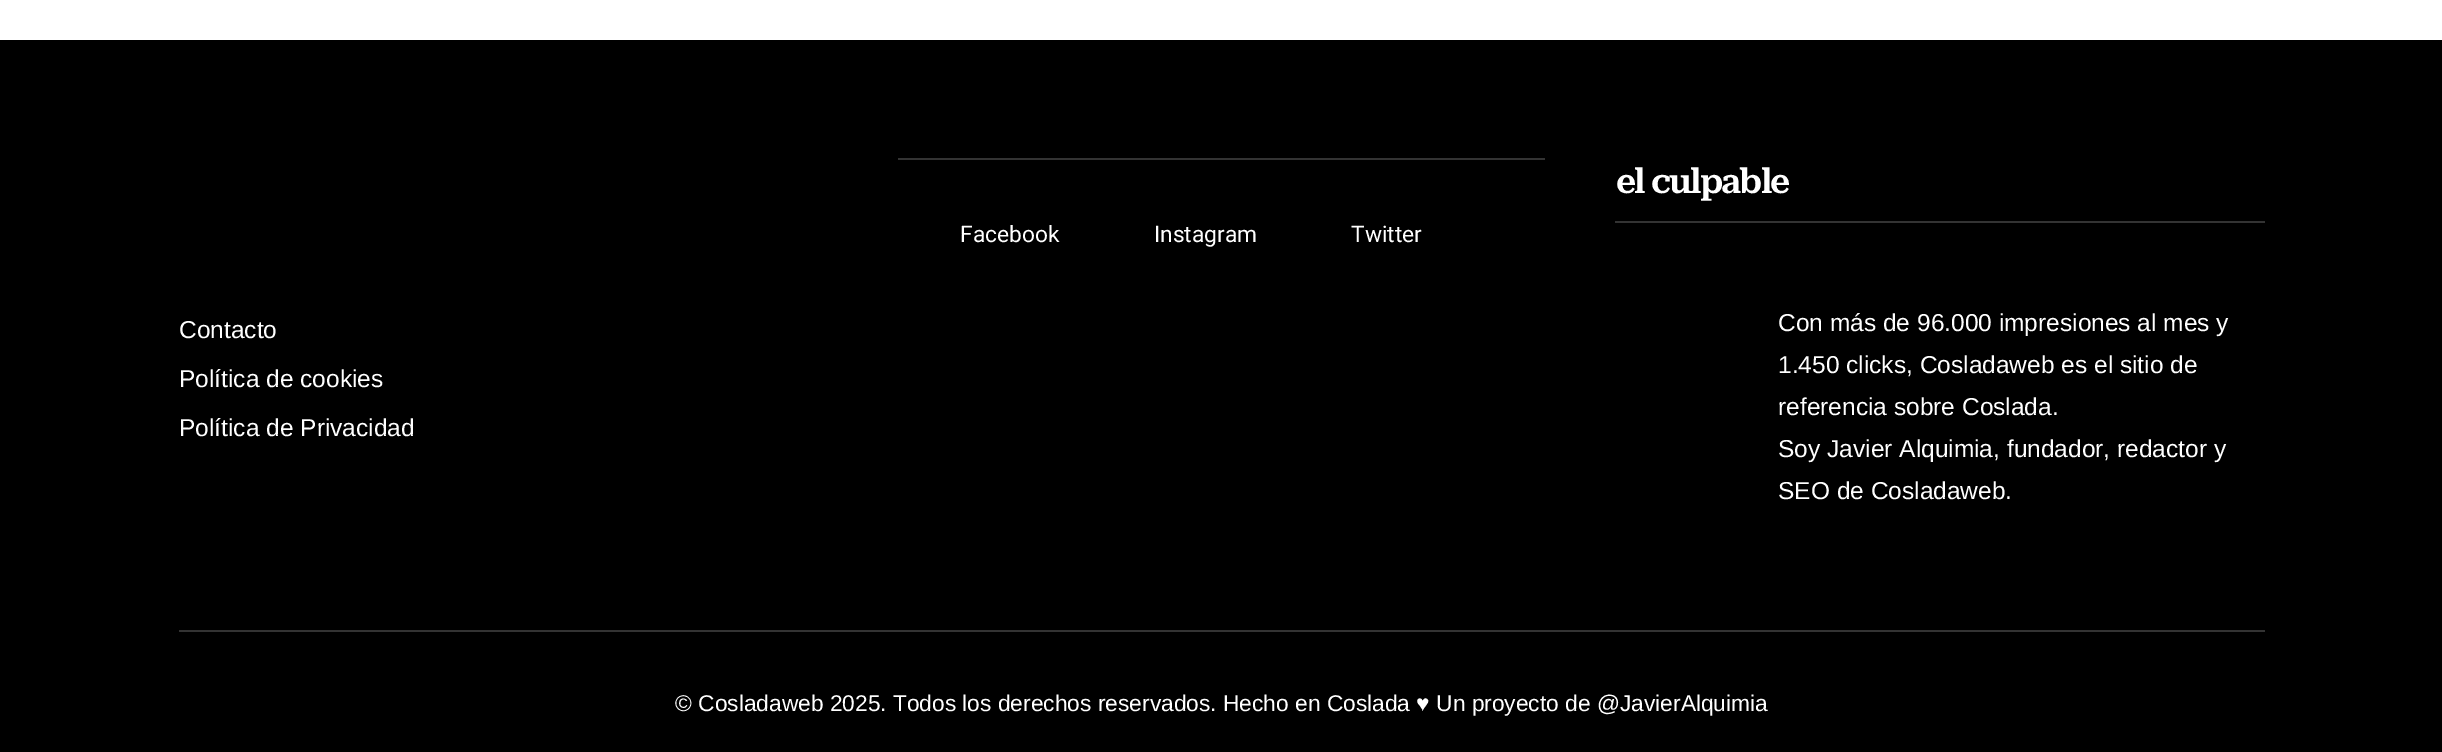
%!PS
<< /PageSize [2442 752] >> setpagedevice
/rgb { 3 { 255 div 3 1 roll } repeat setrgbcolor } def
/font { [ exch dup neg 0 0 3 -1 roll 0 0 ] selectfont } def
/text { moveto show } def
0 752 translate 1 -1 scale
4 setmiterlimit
255 255 255 rgb
0 0 2442 752 rectfill
0 0 0 rgb
0 40 2442 712 rectfill
51 51 51 rgb
898 158 647 2 rectfill
1615 221 650 2 rectfill
179 630 2086 2 rectfill
/Roboto-Regular 22.75 font
255 255 255 rgb
(Facebook) 960 242 text
(Instagram) 1154 242 text
(Twitter) 1351 242 text
/RobotoSerif-SemiBold 35 font
1616 193 moveto -1.75 0 (el culpable) ashow
/LiberationSans-Regular 24.5 font
(Con más de 96.000 impresiones al mes y) 1778 331 text
(1.450 clicks, Cosladaweb es el sitio de) 1778 373 text
(referencia sobre Coslada.) 1778 415 text
(Soy Javier Alquimia, fundador, redactor y) 1778 457 text
(SEO de Cosladaweb.) 1778 499 text
(Contacto) 179 338 text
(Política de cookies) 179 387 text
(Política de Privacidad) 179 436 text
/LiberationSans-Regular 22.75 font
(© Cosladaweb 2025. Todos los derechos reservados. Hecho en Coslada ♥ Un proyecto de @JavierAlquimia) 675 711 text
showpage
